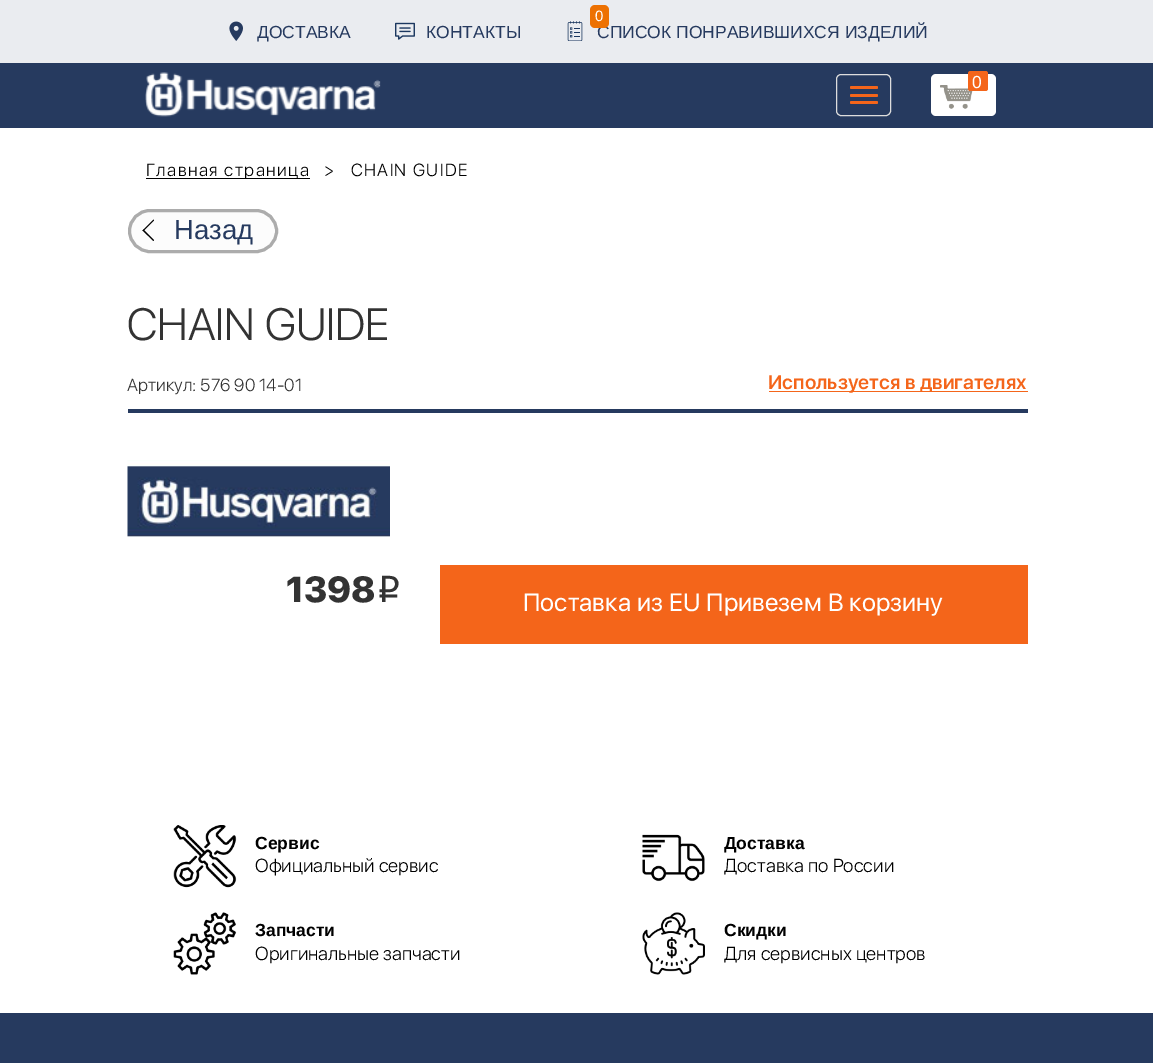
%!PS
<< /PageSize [1153 1063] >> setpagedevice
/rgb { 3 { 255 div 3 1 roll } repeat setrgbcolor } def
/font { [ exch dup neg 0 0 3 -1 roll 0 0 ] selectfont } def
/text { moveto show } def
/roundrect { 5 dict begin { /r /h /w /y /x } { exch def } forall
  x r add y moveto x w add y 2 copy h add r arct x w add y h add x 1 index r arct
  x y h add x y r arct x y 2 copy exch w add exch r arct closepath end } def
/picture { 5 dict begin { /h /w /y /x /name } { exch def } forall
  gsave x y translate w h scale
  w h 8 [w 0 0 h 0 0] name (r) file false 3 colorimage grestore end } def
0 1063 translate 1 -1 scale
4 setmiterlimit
255 255 255 rgb
0 0 1153 1063 rectfill
234 236 240 rgb
0 0 1153 63 rectfill
(img_01.rgb) 229 21 14 20 picture
(img_02.rgb) 395 22 20 18 picture
(img_03.rgb) 567 21 16 20 picture
38 58 95 rgb
0 63 1153 65 rectfill
(img_04.rgb) 145 72 236 45 picture
221 221 221 rgb
836.5 74.5 54 41 4.5 roundrect stroke
244 101 26 rgb
850 86 28 3 1.5 roundrect fill
850 94 28 3 1.5 roundrect fill
850 101 28 3 1.5 roundrect fill
255 255 255 rgb
931 74 65 42 5 roundrect fill
(img_05.rgb) 940 85 33 24 picture
244 101 26 rgb
968 71 20 20 2.5 roundrect fill
0 0 0 rgb
146 178 164 1 rectfill
252 252 252 rgb
129.5 210.5 147 41 20.5 roundrect gsave fill grestore
172 172 172 rgb
3 setlinewidth
stroke
0 0 0 rgb
142.5 230.5 moveto 11 -11 rlineto 0.5 1 rlineto -10.5 10.5 rlineto closepath fill
142.5 230.5 moveto 1 -1 rlineto 10.5 10.5 rlineto -0.5 1 rlineto closepath fill
244 101 26 rgb
769 391 259 1 rectfill
38 58 95 rgb
128 409 900 4 rectfill
(img_06.rgb) 127 460 263 77 picture
244 101 26 rgb
440 565 588 79 rectfill
(img_07.rgb) 173 825 64 63 picture
(img_08.rgb) 642 834 63 48 picture
(img_09.rgb) 173 912 64 63 picture
(img_10.rgb) 642 912 63 63 picture
38 58 95 rgb
0 1013 1153 50 rectfill
/LiberationSans-Regular 17.5 font
(ДОСТАВКА) 257 38 text
(КОНТАКТЫ) 426 38 text
(СПИСОК ПОНРАВИВШИХСЯ ИЗДЕЛИЙ) 597 38 text
237 113 2 rgb
590 5 19 23 5 roundrect fill
/LiberationSans-Regular 15 font
255 255 255 rgb
(0) 595 21 text
/LiberationSans-Regular 17.5 font
(0) 972 88 text
/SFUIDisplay-Light 17.5 font
0 0 0 rgb
146 176 moveto 1.4 0 (Главная страница) ashow
324 176 moveto 1.4 0 (>) ashow
351 176 moveto 1.4 0 (CHAIN GUIDE) ashow
/LiberationSans-Regular 27.5 font
38 58 95 rgb
(Назад) 174 239 text
/SFUIDisplay-Light 45 font
51 51 51 rgb
(CHAIN GUIDE) 127 340 text
/SFUIDisplay-Light 17.5 font
(Артикул: 576 90 14-01) 127 391 text
/SFUIDisplay-SemiBold 20 font
244 101 26 rgb
(Используется в двигателях) 768 389 text
/SFUIDisplay-Black 37.5 font
51 51 51 rgb
(1398) 286 602 text
/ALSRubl-Regular 37.5 font
(i) 376 602 text
/SFUIDisplay-Regular 25 font
255 255 255 rgb
(Поставка из EU Привезем В корзину) 523 611 text
/LiberationSans-Bold 17.5 font
0 0 0 rgb
(Сервис) 255 849 text
/SFUIDisplay-Light 18.75 font
(Официальный сервис) 255 872 text
/LiberationSans-Bold 17.5 font
(Доставка) 724 849 text
/SFUIDisplay-Light 18.75 font
(Доставка по России) 724 872 text
/LiberationSans-Bold 17.5 font
(Запчасти) 255 936 text
/SFUIDisplay-Light 18.75 font
(Оригинальные запчасти) 255 960 text
/LiberationSans-Bold 17.5 font
(Скидки) 724 936 text
/SFUIDisplay-Light 18.75 font
(Для сервисных центров) 724 960 text
showpage
